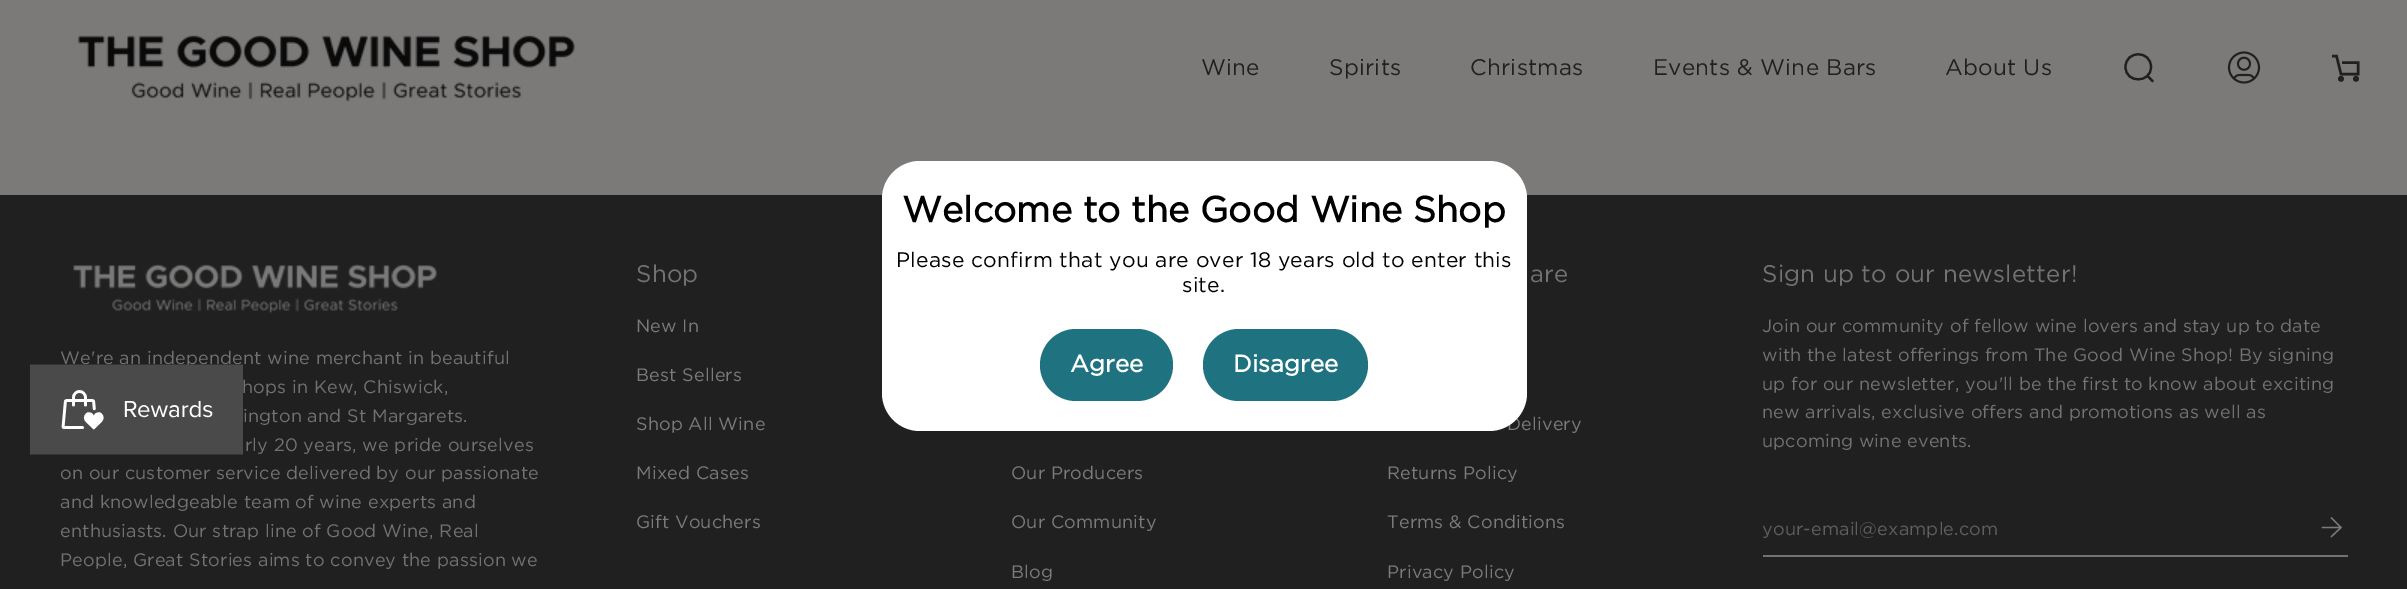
%!PS
<< /PageSize [2407 589] >> setpagedevice
/rgb { 3 { 255 div 3 1 roll } repeat setrgbcolor } def
/font { [ exch dup neg 0 0 3 -1 roll 0 0 ] selectfont } def
/text { moveto show } def
/circle { newpath 0 360 arc closepath } def
/roundrect { 5 dict begin { /r /h /w /y /x } { exch def } forall
  x r add y moveto x w add y 2 copy h add r arct x w add y h add x 1 index r arct
  x y h add x y r arct x y 2 copy exch w add exch r arct closepath end } def
/picture { 5 dict begin { /h /w /y /x /name } { exch def } forall
  gsave x y translate w h scale
  w h 8 [w 0 0 h 0 0] name (r) file false 3 colorimage grestore end } def
0 589 translate 1 -1 scale
4 setmiterlimit
124 122 121 rgb
0 0 2407 589 rectfill
(img_01.rgb) 77 35 498 67 picture
33 32 32 rgb
2.2 setlinewidth
1 setlinecap
1 setlinejoin
2152.5 81 moveto -5 -5 rlineto 2151 67 moveto 0 16.5 -25.5 16.5 -25.5 0 rcurveto 0 -17 25.5 -17 25.5 0 rcurveto closepath stroke
(img_02.rgb) 2227 51 34 33 picture
2.5 setlinewidth
0 setlinecap
0 setlinejoin
2332 56 moveto 4.5 0 rlineto 4.5 18 rlineto 17 0 rlineto 0 -11.5 rlineto -16 0 rlineto stroke
2341 78.8 1.6 circle stroke
2356 78.8 1.6 circle stroke
0 195 2407 394 rectfill
(img_03.rgb) 73 264 364 50 picture
115 113 113 rgb
1763 555 585 2 rectfill
124 122 122 rgb
1.3 setlinewidth
2 setlinecap
2322.5 527.5 moveto 18.5 0 rlineto 2341 527.5 moveto -9.5 -9.5 rlineto 2341 527.5 moveto -9.5 9 rlineto stroke
/Gotham-Regular 22.5 font
33 32 32 rgb
1201 75 moveto 0.25 0 (Wine) ashow
1329 75 moveto 0.25 0 (Spirits) ashow
1470 75 moveto 0.25 0 (Christmas) ashow
1653 75 moveto 0.25 0 (Events & Wine Bars) ashow
1945 75 moveto 0.25 0 (About Us) ashow
/Gotham-Regular 18 font
115 113 113 rgb
60 364 moveto 0.18 0 (We're an independent wine merchant in beautiful) ashow
242 393 moveto 0.18 0 (hops in Kew, Chiswick,) ashow
243 422 moveto 0.18 0 (ington and St Margarets.) ashow
245 451 moveto 0.18 0 (rly 20 years, we pride ourselves) ashow
60 479 moveto 0.18 0 (on our customer service delivered by our passionate) ashow
60 508 moveto 0.18 0 (and knowledgeable team of wine experts and) ashow
60 537 moveto 0.18 0 (enthusiasts. Our strap line of Good Wine, Real) ashow
60 566 moveto 0.18 0 (People, Great Stories aims to convey the passion we) ashow
/Gotham-Regular 24 font
636 282 moveto 0.25 0 (Shop) ashow
/Gotham-Regular 18 font
124 122 122 rgb
636 332 moveto 0.18 0 (New In) ashow
636 381 moveto 0.18 0 (Best Sellers) ashow
636 430 moveto 0.18 0 (Shop All Wine) ashow
636 479 moveto 0.18 0 (Mixed Cases) ashow
636 528 moveto 0.18 0 (Gift Vouchers) ashow
1011 479 moveto 0.18 0 (Our Producers) ashow
1011 528 moveto 0.18 0 (Our Community) ashow
1011 578 moveto 0.18 0 (Blog) ashow
/Gotham-Regular 24 font
115 113 113 rgb
1530 282 moveto 0.25 0 (are) ashow
/Gotham-Regular 18 font
124 122 122 rgb
1507 430 moveto 0.18 0 (Delivery) ashow
255 255 255 rgb
882 161 645 270 38 roundrect fill
31 115 129 rgb
1203 329 165 72 36 roundrect fill
/Gotham-Bold 24 font
255 255 255 rgb
(Disagree) 1233 372 text
31 115 129 rgb
1040 329 133 72 36 roundrect fill
255 255 255 rgb
(Agree) 1070 372 text
/Gotham-Regular 21 font
0 0 0 rgb
1182 292 moveto 0.25 0 (site.) ashow
896 267 moveto 0.25 0 (Please confirm that you are over 18 years old to enter this) ashow
/Gotham-Bold 36 font
(Welcome to the Good Wine Shop) 902 222 text
/Gotham-Regular 18 font
124 122 122 rgb
1387 479 moveto 0.18 0 (Returns Policy) ashow
1387 528 moveto 0.18 0 (Terms & Conditions) ashow
1387 578 moveto 0.18 0 (Privacy Policy) ashow
/Gotham-Regular 24 font
115 113 113 rgb
1762 282 moveto 0.25 0 (Sign up to our newsletter!) ashow
/Gotham-Regular 18 font
1762 332 moveto 0.18 0 (Join our community of fellow wine lovers and stay up to date) ashow
1762 361 moveto 0.18 0 (with the latest offerings from The Good Wine Shop! By signing) ashow
1762 390 moveto 0.18 0 (up for our newsletter, you'll be the first to know about exciting) ashow
1762 418 moveto 0.18 0 (new arrivals, exclusive offers and promotions as well as) ashow
1762 447 moveto 0.18 0 (upcoming wine events.) ashow
96 95 95 rgb
1762 535 moveto 0.18 0 (your-email@example.com) ashow
(img_04.rgb) 30 364 213 91 picture
showpage
